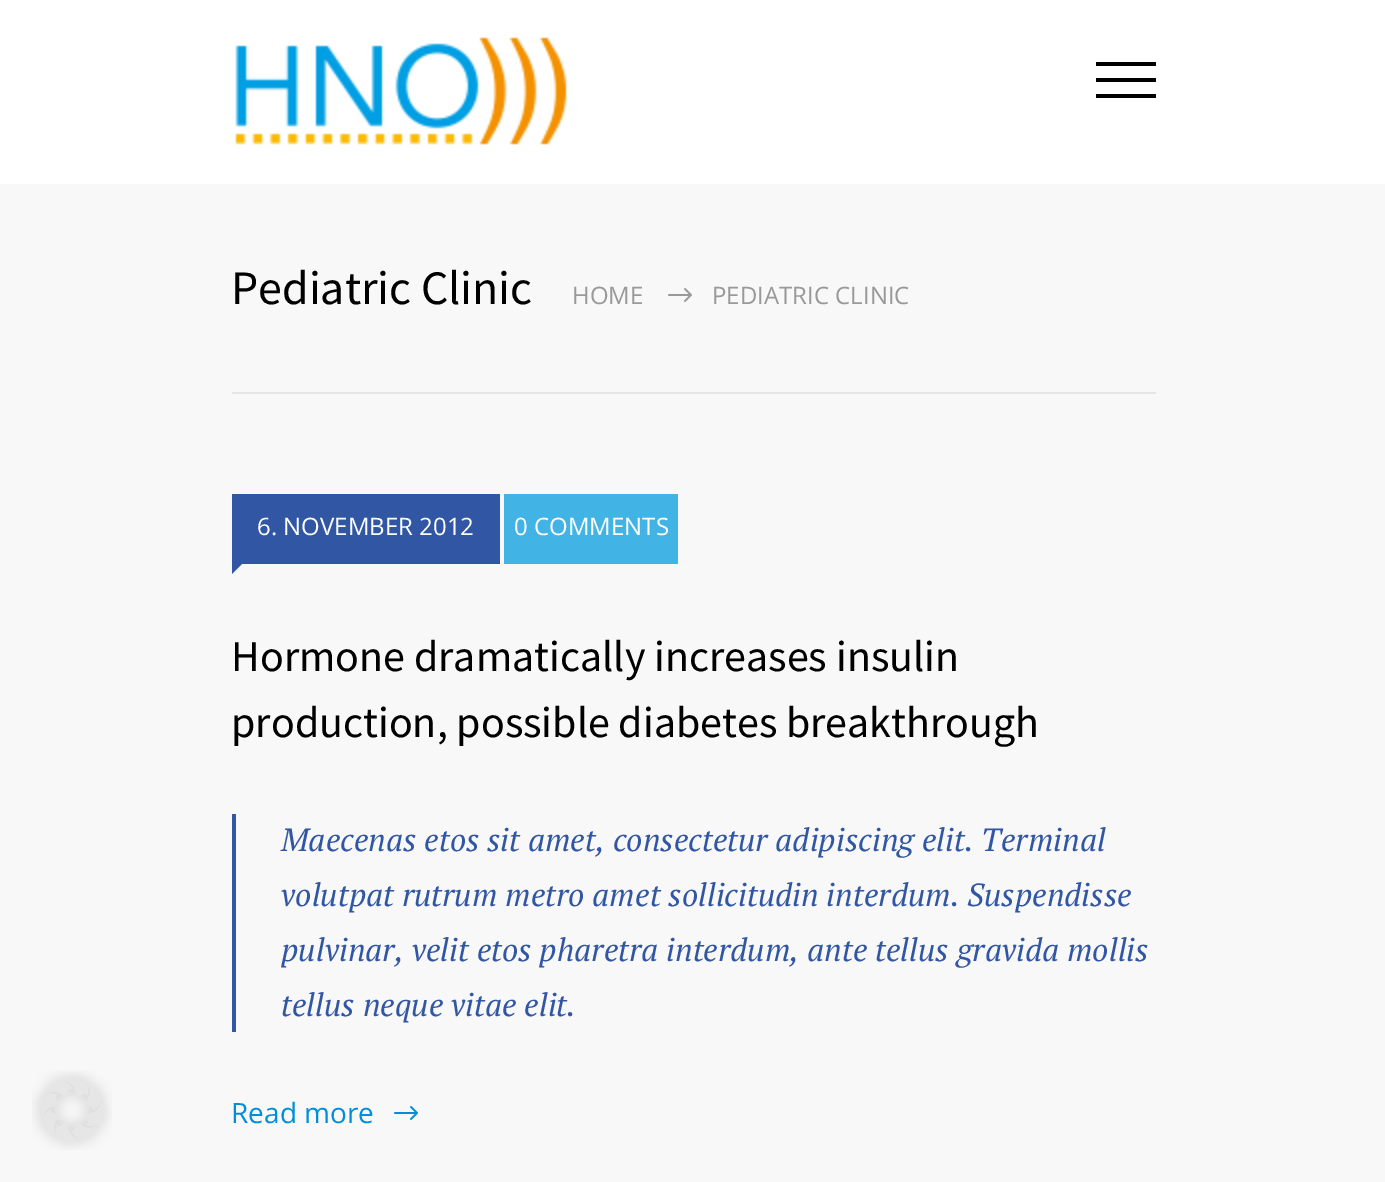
%!PS
<< /PageSize [1385 1182] >> setpagedevice
/rgb { 3 { 255 div 3 1 roll } repeat setrgbcolor } def
/font { [ exch dup neg 0 0 3 -1 roll 0 0 ] selectfont } def
/text { moveto show } def
/picture { 5 dict begin { /h /w /y /x /name } { exch def } forall
  gsave x y translate w h scale
  w h 8 [w 0 0 h 0 0] name (r) file false 3 colorimage grestore end } def
0 1182 translate 1 -1 scale
4 setmiterlimit
248 248 248 rgb
0 0 1385 1182 rectfill
(img_01.rgb) 32 1070 80 80 picture
255 255 255 rgb
0 0 1385 184 rectfill
(img_02.rgb) 235 37 332 108 picture
0 0 0 rgb
1096 62 60 4 rectfill
1096 78 60 4 rectfill
1096 94 60 4 rectfill
229 229 229 rgb
232 392 924 2 rectfill
(img_03.rgb) 668 288 24 14 picture
49 86 163 rgb
232 494 268 70 rectfill
232 564 moveto 10 0 rlineto -10 10 rlineto closepath fill
66 179 229 rgb
504 494 174 70 rectfill
49 86 163 rgb
232 814 4 218 rectfill
(img_04.rgb) 394 1106 24 14 picture
/SourceSansPro-Regular 48 font
0 0 0 rgb
(Pediatric Clinic) 231 304 text
/OpenSans-Regular 24 font
153 153 153 rgb
(HOME) 572 304 text
(PEDIATRIC CLINIC) 712 304 text
255 255 255 rgb
(6. NOVEMBER 2012) 257 535 text
(0 COMMENTS) 514 535 text
/SourceSansPro-Regular 44 font
0 0 0 rgb
(Hormone dramatically increases insulin) 231 671 text
(production, possible diabetes breakthrough) 231 737 text
/PTSerif-Italic 32 font
49 86 163 rgb
(Maecenas etos sit amet, consectetur adipiscing elit. Terminal) 281 851 text
(volutpat rutrum metro amet sollicitudin interdum. Suspendisse) 281 906 text
(pulvinar, velit etos pharetra interdum, ante tellus gravida mollis) 281 961 text
(tellus neque vitae elit.) 281 1016 text
/OpenSans-Regular 28 font
0 142 219 rgb
(Read more) 231 1123 text
showpage
